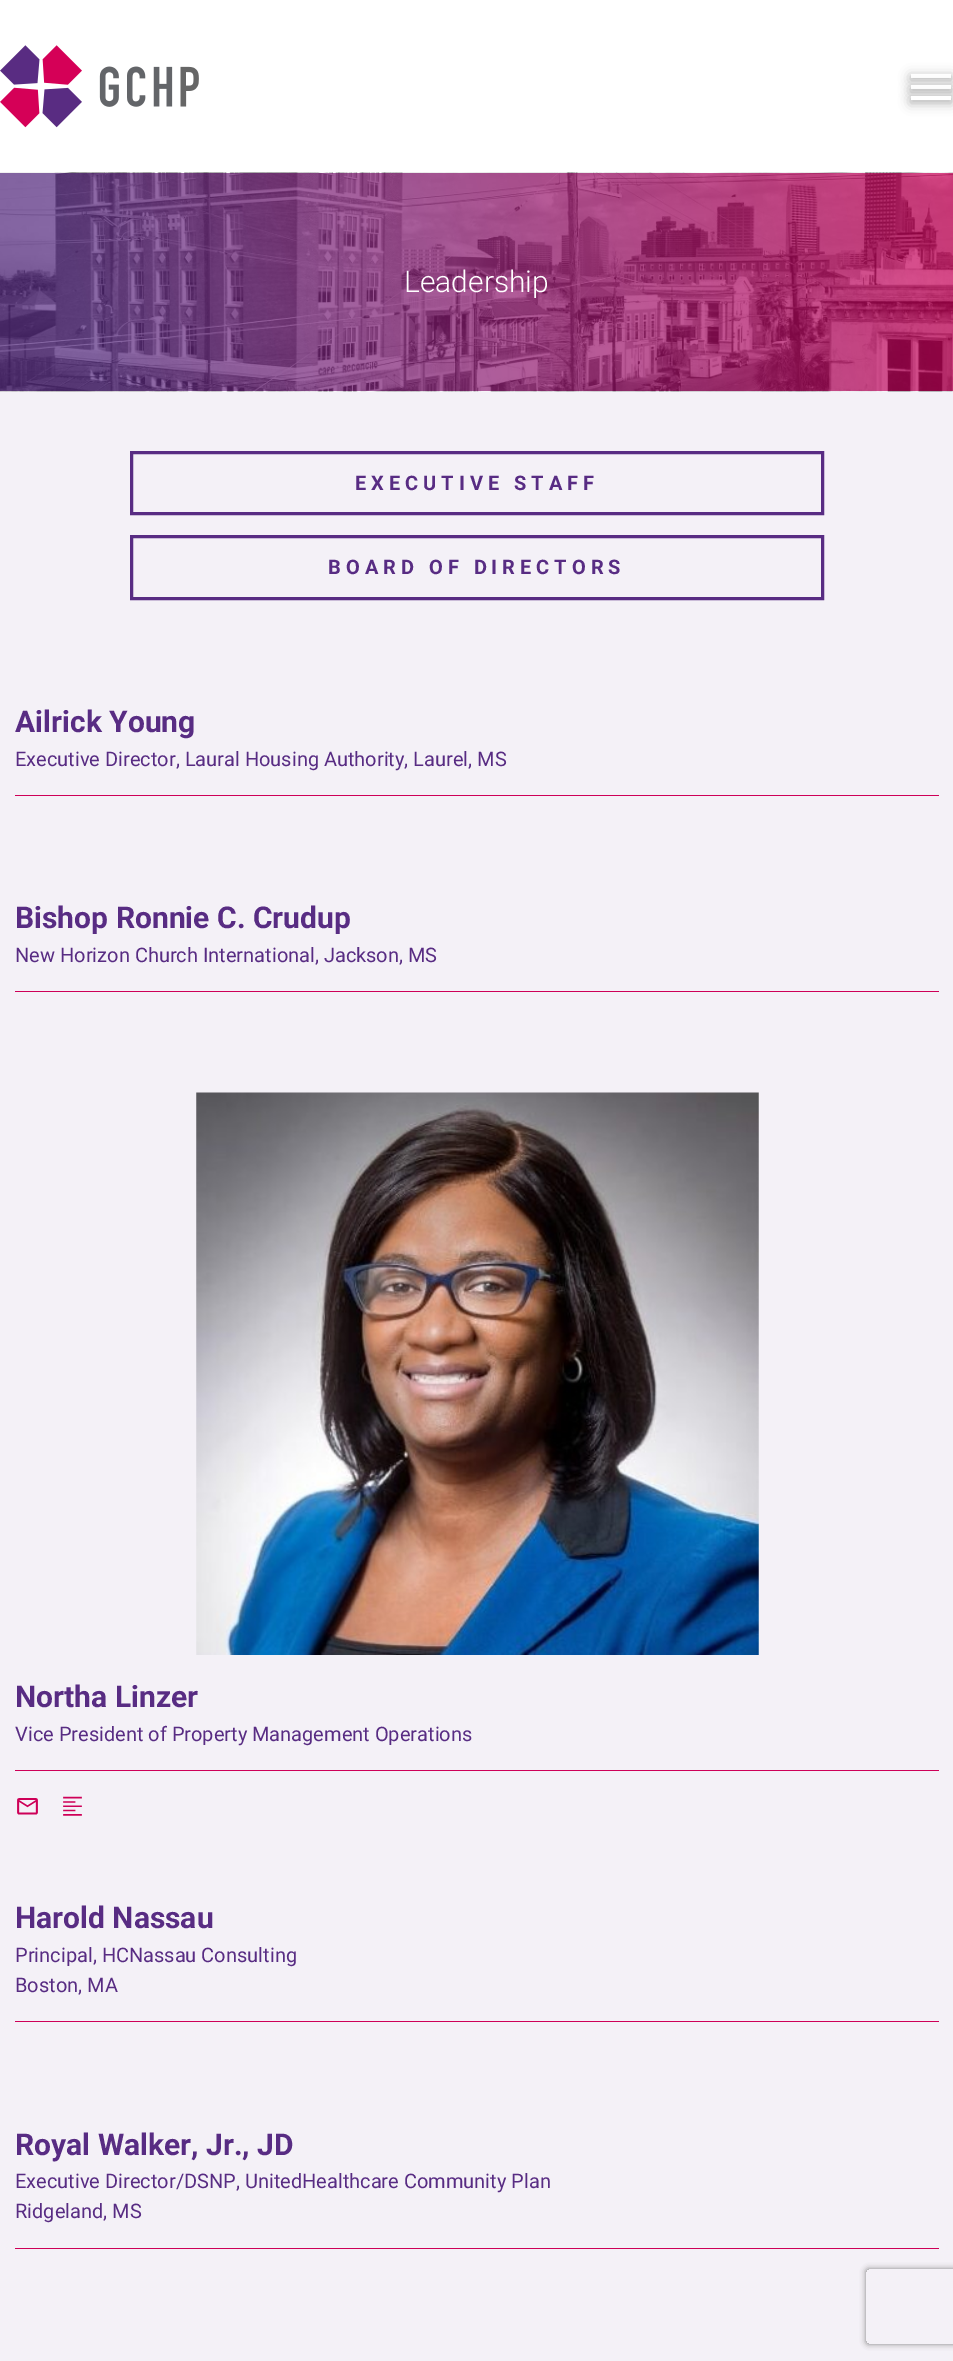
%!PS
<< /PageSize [953 2361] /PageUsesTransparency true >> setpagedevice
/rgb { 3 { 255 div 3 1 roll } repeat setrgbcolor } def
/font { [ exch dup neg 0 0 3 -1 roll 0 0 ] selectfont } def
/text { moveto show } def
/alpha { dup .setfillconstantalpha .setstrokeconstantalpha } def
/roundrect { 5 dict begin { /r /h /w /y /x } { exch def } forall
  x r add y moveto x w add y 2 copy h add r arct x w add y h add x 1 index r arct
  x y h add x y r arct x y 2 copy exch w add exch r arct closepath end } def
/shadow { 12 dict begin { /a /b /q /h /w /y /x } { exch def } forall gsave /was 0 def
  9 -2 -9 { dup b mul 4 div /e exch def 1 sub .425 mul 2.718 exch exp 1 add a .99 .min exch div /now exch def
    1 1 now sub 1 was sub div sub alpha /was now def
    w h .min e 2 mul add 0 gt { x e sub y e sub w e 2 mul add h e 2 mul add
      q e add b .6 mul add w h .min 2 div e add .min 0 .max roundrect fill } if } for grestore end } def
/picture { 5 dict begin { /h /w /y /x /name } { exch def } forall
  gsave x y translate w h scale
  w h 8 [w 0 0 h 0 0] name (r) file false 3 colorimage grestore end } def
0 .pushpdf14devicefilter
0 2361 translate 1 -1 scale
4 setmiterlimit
255 255 255 rgb
0 0 953 2361 rectfill
(img_01.rgb) 0 45 199 83 picture
0 0 0 rgb
911 76 40 4 0 6 0.3 shadow
255 255 255 rgb
911 74 40 4 rectfill
0 0 0 rgb
911 88 40 4 0 6 0.3 shadow
255 255 255 rgb
911 85 40 4 rectfill
0 0 0 rgb
911 99 40 4 0 6 0.3 shadow
255 255 255 rgb
911 96 40 4 rectfill
244 241 247 rgb
0 391 953 1970 rectfill
(img_02.rgb) 0 172 953 220 picture
88 44 131 rgb
3 setlinewidth
131.5 452.5 691 61 rectstroke
131.5 536.5 691 62 rectstroke
206 0 88 rgb
15 795 924 1 rectfill
15 991 924 1 rectfill
(img_03.rgb) 196 1092 563 563 picture
15 1770 924 1 rectfill
(img_04.rgb) 17 1798 21 17 picture
(img_05.rgb) 63 1796 19 20 picture
15 2021 924 1 rectfill
15 2248 924 1 rectfill
gsave
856 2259 moveto 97 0 rlineto 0 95 rlineto -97 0 rlineto closepath 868.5 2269 moveto 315 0 rlineto 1.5 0 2.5 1 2.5 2.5 rcurveto 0 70 rlineto 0 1.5 -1 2.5 -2.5 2.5 rcurveto -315 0 rlineto -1.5 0 -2.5 -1 -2.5 -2.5 rcurveto 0 -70 rlineto 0 -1.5 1 -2.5 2.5 -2.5 rcurveto closepath eoclip newpath
128 128 128 rgb
866 2269 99 75 2.5 3 1 shadow
grestore
/Roboto-Light 30 font
255 255 255 rgb
(Leadership) 404 292 text
/Roboto-Bold 20 font
88 44 131 rgb
355 490 moveto 5 0 (EXECUTIVE STAFF) ashow
328 574 moveto 5 0 (BOARD OF DIRECTORS) ashow
/Roboto-Bold 30 font
(Ailrick Young) 15 732 text
/Roboto-Regular 20 font
(Executive Director, Laural Housing Authority, Laurel, MS) 15 766 text
/Roboto-Bold 30 font
(Bishop Ronnie C. Crudup) 15 928 text
/Roboto-Regular 20 font
(New Horizon Church International, Jackson, MS) 15 962 text
/Roboto-Bold 30 font
(Northa Linzer) 15 1707 text
/Roboto-Regular 20 font
(Vice President of Property Management Operations) 15 1741 text
/Roboto-Bold 30 font
(Harold Nassau) 15 1928 text
/Roboto-Regular 20 font
(Principal, HCNassau Consulting) 15 1962 text
(Boston, MA) 15 1992 text
/Roboto-Bold 30 font
(Royal Walker, Jr., JD) 15 2155 text
/Roboto-Regular 20 font
(Executive Director/DSNP, UnitedHealthcare Community Plan) 15 2188 text
(Ridgeland, MS) 15 2218 text
.poppdf14devicefilter showpage
